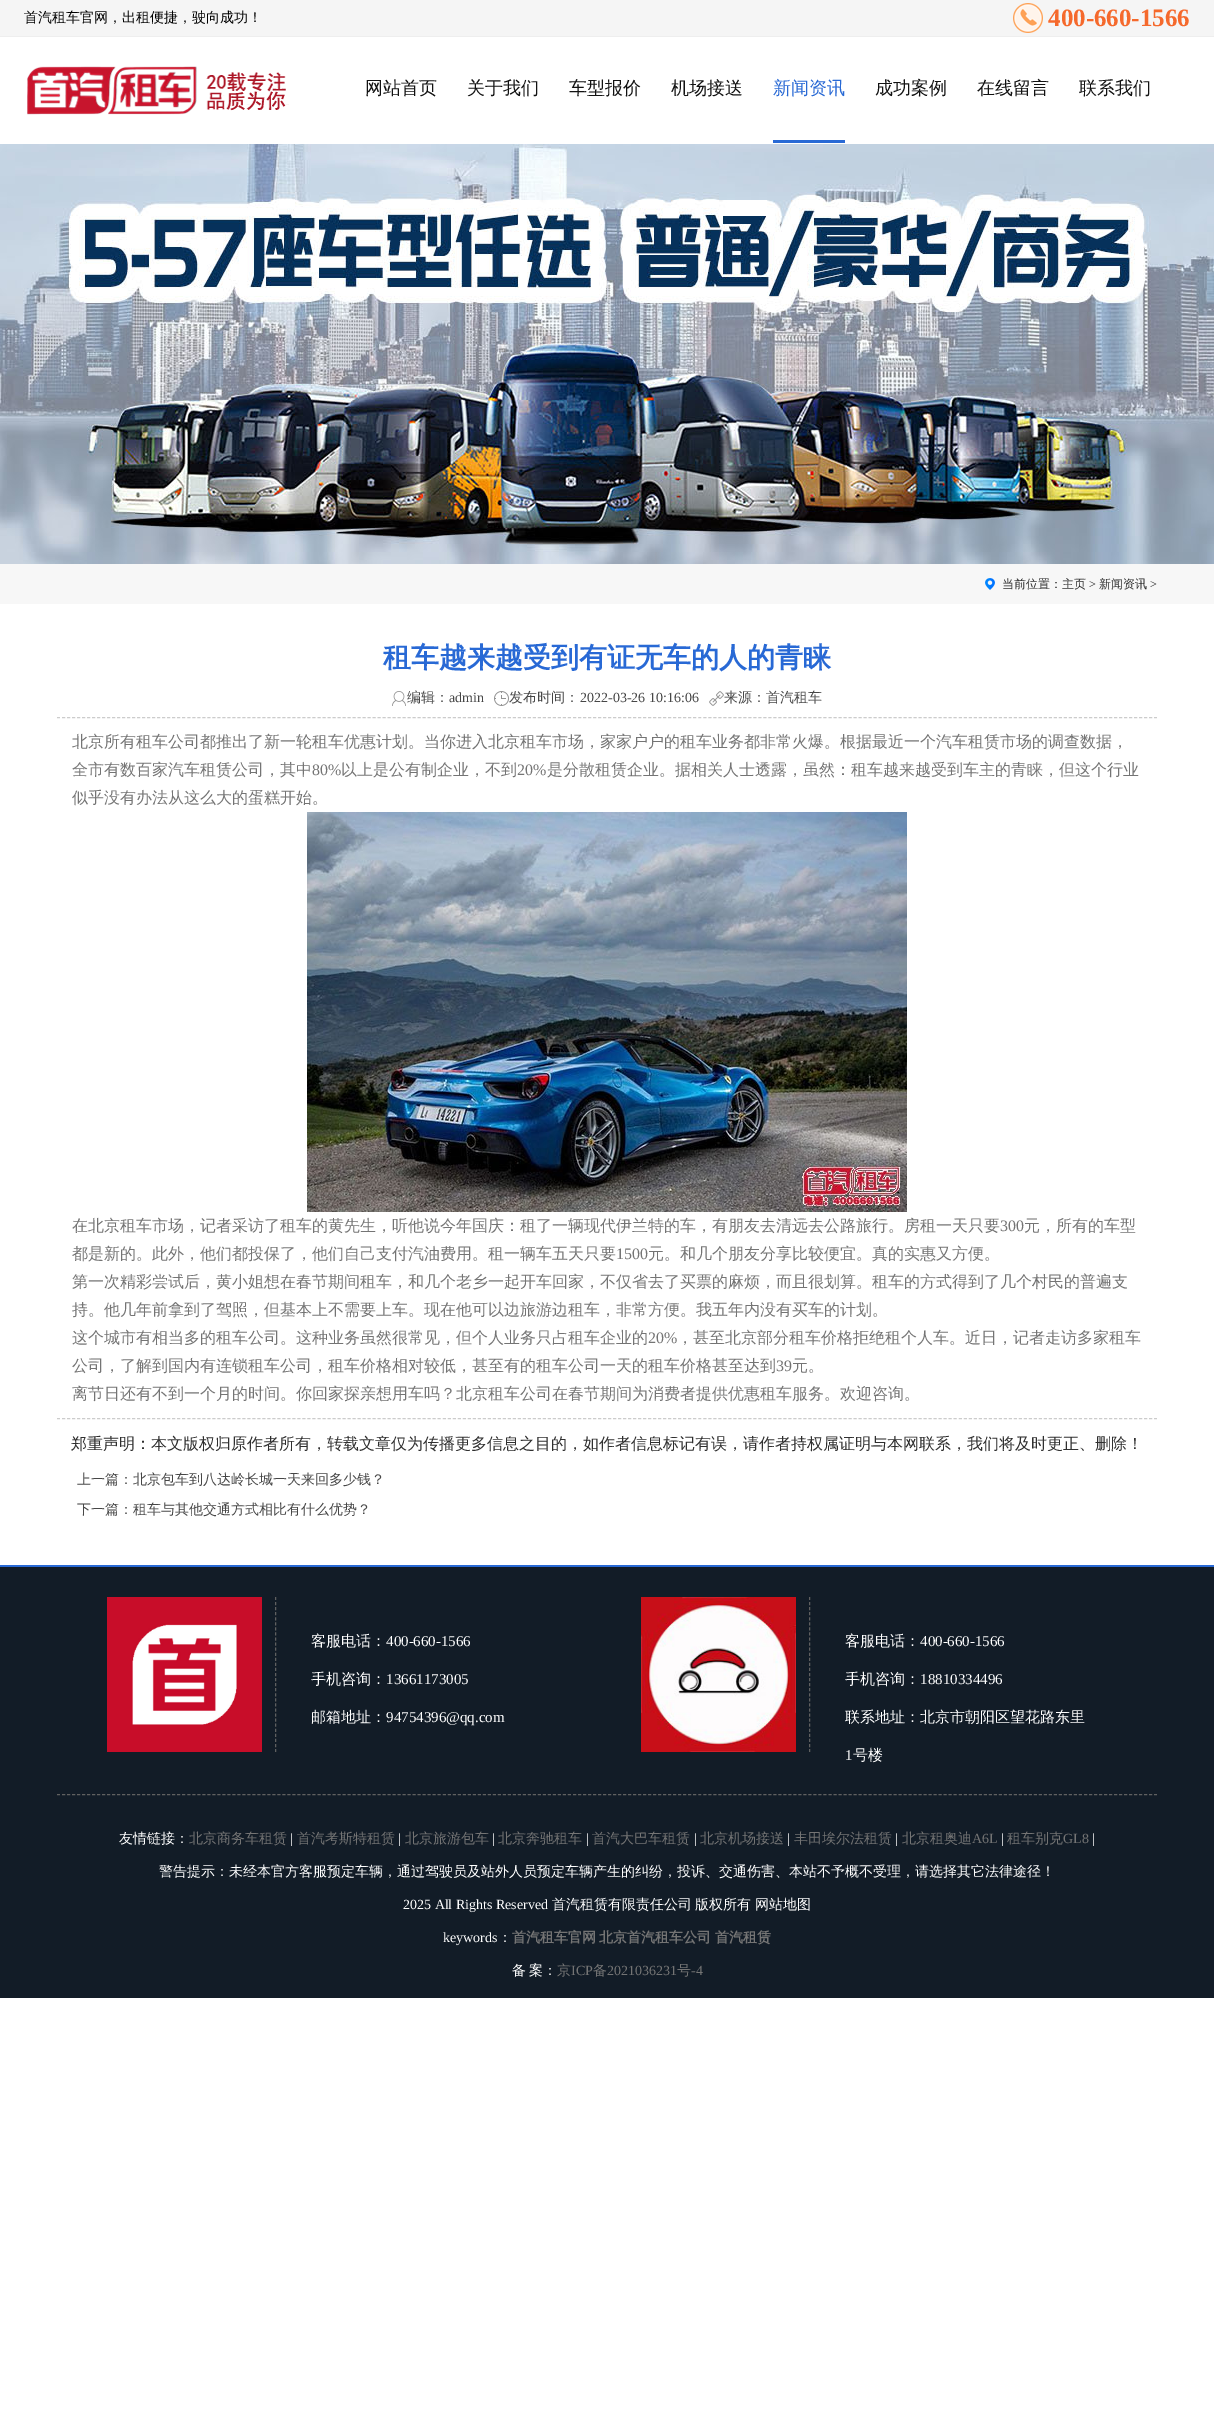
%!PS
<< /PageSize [1214 2428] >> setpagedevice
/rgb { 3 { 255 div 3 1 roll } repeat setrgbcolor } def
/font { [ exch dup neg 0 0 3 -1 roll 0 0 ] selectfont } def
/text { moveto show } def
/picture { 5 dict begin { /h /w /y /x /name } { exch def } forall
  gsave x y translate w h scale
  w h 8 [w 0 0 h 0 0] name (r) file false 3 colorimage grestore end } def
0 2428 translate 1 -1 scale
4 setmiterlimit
255 255 255 rgb
0 0 1214 2428 rectfill
245 245 245 rgb
0 0 1214 36 rectfill
238 238 238 rgb
0 36 1214 1 rectfill
(img_01.rgb) 1013 3 30 30 picture
(img_02.rgb) 27 66 262 49 picture
40 105 213 rgb
773 140 72 3 rectfill
(img_03.rgb) 0 144 1214 420 picture
247 247 247 rgb
0 564 1214 40 rectfill
(img_04.rgb) 985 578 10 12 picture
204 204 204 rgb
[3 2.01] 0 setdash
57 717.5 moveto 1100 0 rlineto stroke
(img_05.rgb) 392 691 14 15 picture
(img_06.rgb) 494 691 15 15 picture
(img_07.rgb) 709 691 15 15 picture
57 1418.5 moveto 1100 0 rlineto stroke
(img_08.rgb) 307 812 600 400 picture
18 28 39 rgb
0 1567 1214 431 rectfill
40 105 213 rgb
0 1565 1214 2 rectfill
96 96 96 rgb
[3 2.07] 0 setdash
275.5 1597 moveto 0 155 rlineto stroke
(img_09.rgb) 107 1597 155 155 picture
809.5 1597 moveto 0 155 rlineto stroke
(img_10.rgb) 641 1597 155 155 picture
[3 2.01] 0 setdash
57 1794.5 moveto 1100 0 rlineto stroke
/WenQuanYiZenHei-Medium 14 font
0 0 0 rgb
(首汽租车官网，出租便捷，驶向成功！) 24 22 text
/LiberationSerif-Bold 25 font
245 105 44 rgb
(400-660-1566) 1048 26 text
/WenQuanYiZenHei-Medium 18 font
18 18 18 rgb
(网站首页) 365 94 text
(关于我们) 467 94 text
(车型报价) 569 94 text
(机场接送) 671 94 text
40 105 213 rgb
(新闻资讯) 773 94 text
18 18 18 rgb
(成功案例) 875 94 text
(在线留言) 977 94 text
(联系我们) 1079 94 text
/WenQuanYiZenHei-Medium 12 font
47 47 47 rgb
(当前位置：) 1002 588 text
(主页) 1062 588 text
/LiberationSerif-Regular 12 font
(>) 1089 588 text
/WenQuanYiZenHei-Medium 12 font
(新闻资讯) 1099 588 text
/LiberationSerif-Regular 12 font
(>) 1150 588 text
/WenQuanYiZenHei-Bold 28 font
40 105 213 rgb
(租车越来越受到有证无车的人的青睐) 383 667 text
/WenQuanYiZenHei-Medium 14 font
70 70 70 rgb
(编辑：) 407 702 text
/LiberationSerif-Regular 14 font
(admin) 449 702 text
/WenQuanYiZenHei-Medium 14 font
(发布时间：) 509 702 text
/LiberationSerif-Regular 14 font
(2022-03-26 10:16:06) 580 702 text
/WenQuanYiZenHei-Medium 14 font
(来源：首汽租车) 724 702 text
/WenQuanYiZenHei-Medium 16 font
116 116 116 rgb
(北京所有租车公司都推出了新一轮租车优惠计划。当你进入北京租车市场，家家户户的租车业务都非常火爆。根据最近一个汽车租赁市场的调查数据，) 72 747 text
(全市有数百家汽车租赁公司，其中) 72 775 text
/LiberationSerif-Regular 16 font
(80%) 312 775 text
/WenQuanYiZenHei-Medium 16 font
(以上是公有制企业，不到) 341 775 text
/LiberationSerif-Regular 16 font
(20%) 517 775 text
/WenQuanYiZenHei-Medium 16 font
(是分散租赁企业。据相关人士透露，虽然：租车越来越受到车主的青睐，但这个行业) 547 775 text
(似乎没有办法从这么大的蛋糕开始。) 72 803 text
(在北京租车市场，记者采访了租车的黄先生，听他说今年国庆：租了一辆现代伊兰特的车，有朋友去清远去公路旅行。房租一天只要) 72 1231 text
/LiberationSerif-Regular 16 font
(300) 1000 1231 text
/WenQuanYiZenHei-Medium 16 font
(元，所有的车型) 1024 1231 text
(都是新的。此外，他们都投保了，他们自己支付汽油费用。租一辆车五天只要) 72 1259 text
/LiberationSerif-Regular 16 font
(1500) 616 1259 text
/WenQuanYiZenHei-Medium 16 font
(元。和几个朋友分享比较便宜。真的实惠又方便。) 648 1259 text
(第一次精彩尝试后，黄小姐想在春节期间租车，和几个老乡一起开车回家，不仅省去了买票的麻烦，而且很划算。租车的方式得到了几个村民的普遍支) 72 1287 text
(持。他几年前拿到了驾照，但基本上不需要上车。现在他可以边旅游边租车，非常方便。我五年内没有买车的计划。) 72 1315 text
(这个城市有相当多的租车公司。这种业务虽然很常见，但个人业务只占租车企业的) 72 1343 text
/LiberationSerif-Regular 16 font
(20%) 648 1343 text
/WenQuanYiZenHei-Medium 16 font
(，甚至北京部分租车价格拒绝租个人车。近日，记者走访多家租车) 677 1343 text
(公司，了解到国内有连锁租车公司，租车价格相对较低，甚至有的租车公司一天的租车价格甚至达到) 72 1371 text
/LiberationSerif-Regular 16 font
(39) 776 1371 text
/WenQuanYiZenHei-Medium 16 font
(元。) 792 1371 text
(离节日还有不到一个月的时间。你回家探亲想用车吗？北京租车公司在春节期间为消费者提供优惠租车服务。欢迎咨询。) 72 1399 text
47 47 47 rgb
(郑重声明：本文版权归原作者所有，转载文章仅为传播更多信息之目的，如作者信息标记有误，请作者持权属证明与本网联系，我们将及时更正、删除！) 71 1449 text
/WenQuanYiZenHei-Medium 14 font
70 70 70 rgb
(上一篇：北京包车到八达岭长城一天来回多少钱？) 77 1484 text
(下一篇：租车与其他交通方式相比有什么优势？) 77 1514 text
/WenQuanYiZenHei-Medium 15 font
255 255 255 rgb
(客服电话：) 311 1646 text
/LiberationSerif-Regular 15 font
(400-660-1566) 386 1646 text
/WenQuanYiZenHei-Medium 15 font
(手机咨询：) 311 1684 text
/LiberationSerif-Regular 15 font
(13661173005) 386 1684 text
/WenQuanYiZenHei-Medium 15 font
(邮箱地址：) 311 1722 text
/LiberationSerif-Regular 15 font
(94754396@qq.com) 386 1722 text
/WenQuanYiZenHei-Medium 15 font
(客服电话：) 845 1646 text
/LiberationSerif-Regular 15 font
(400-660-1566) 920 1646 text
/WenQuanYiZenHei-Medium 15 font
(手机咨询：) 845 1684 text
/LiberationSerif-Regular 15 font
(18810334496) 920 1684 text
/WenQuanYiZenHei-Medium 15 font
(联系地址：北京市朝阳区望花路东里) 845 1722 text
/LiberationSerif-Regular 15 font
(1) 845 1760 text
/WenQuanYiZenHei-Medium 15 font
(号楼) 853 1760 text
/WenQuanYiZenHei-Medium 14 font
(友情链接：) 119 1843 text
116 116 116 rgb
(北京商务车租赁) 189 1843 text
/LiberationSerif-Regular 14 font
255 255 255 rgb
(|) 290 1843 text
/WenQuanYiZenHei-Medium 14 font
116 116 116 rgb
(首汽考斯特租赁) 297 1843 text
/LiberationSerif-Regular 14 font
255 255 255 rgb
(|) 398 1843 text
/WenQuanYiZenHei-Medium 14 font
116 116 116 rgb
(北京旅游包车) 405 1843 text
/LiberationSerif-Regular 14 font
255 255 255 rgb
(|) 492 1843 text
/WenQuanYiZenHei-Medium 14 font
116 116 116 rgb
(北京奔驰租车) 498 1843 text
/LiberationSerif-Regular 14 font
255 255 255 rgb
(|) 586 1843 text
/WenQuanYiZenHei-Medium 14 font
116 116 116 rgb
(首汽大巴车租赁) 592 1843 text
/LiberationSerif-Regular 14 font
255 255 255 rgb
(|) 694 1843 text
/WenQuanYiZenHei-Medium 14 font
116 116 116 rgb
(北京机场接送) 700 1843 text
/LiberationSerif-Regular 14 font
255 255 255 rgb
(|) 787 1843 text
/WenQuanYiZenHei-Medium 14 font
116 116 116 rgb
(丰田埃尔法租赁) 794 1843 text
/LiberationSerif-Regular 14 font
255 255 255 rgb
(|) 895 1843 text
/WenQuanYiZenHei-Medium 14 font
116 116 116 rgb
(北京租奥迪) 902 1843 text
/LiberationSerif-Regular 14 font
(A6L) 972 1843 text
255 255 255 rgb
(|) 1001 1843 text
/WenQuanYiZenHei-Medium 14 font
116 116 116 rgb
(租车别克) 1007 1843 text
/LiberationSerif-Regular 14 font
(GL8) 1063 1843 text
255 255 255 rgb
(|) 1092 1843 text
/WenQuanYiZenHei-Medium 14 font
(警告提示：未经本官方客服预定车辆，通过驾驶员及站外人员预定车辆产生的纠纷，投诉、交通伤害、本站不予概不受理，请选择其它法律途径！) 159 1876 text
/LiberationSerif-Regular 14 font
(2025 All Rights Reserved) 403 1909 text
/WenQuanYiZenHei-Medium 14 font
(首汽租赁有限责任公司) 552 1909 text
(版权所有) 695 1909 text
(网站地图) 755 1909 text
/LiberationSerif-Regular 14 font
(keywords) 443 1942 text
/WenQuanYiZenHei-Medium 14 font
(：) 498 1942 text
/WenQuanYiZenHei-Bold 14 font
116 116 116 rgb
(首汽租车官网) 512 1942 text
(北京首汽租车公司) 599 1942 text
(首汽租赁) 715 1942 text
/WenQuanYiZenHei-Medium 14 font
255 255 255 rgb
512 1975 moveto -1 0 32 (备 案：) widthshow
116 116 116 rgb
(京) 557 1975 text
/LiberationSerif-Regular 14 font
(ICP) 571 1975 text
/WenQuanYiZenHei-Medium 14 font
(备) 593 1975 text
/LiberationSerif-Regular 14 font
(2021036231) 607 1975 text
/WenQuanYiZenHei-Medium 14 font
(号) 677 1975 text
/LiberationSerif-Regular 14 font
(-4) 691 1975 text
showpage
